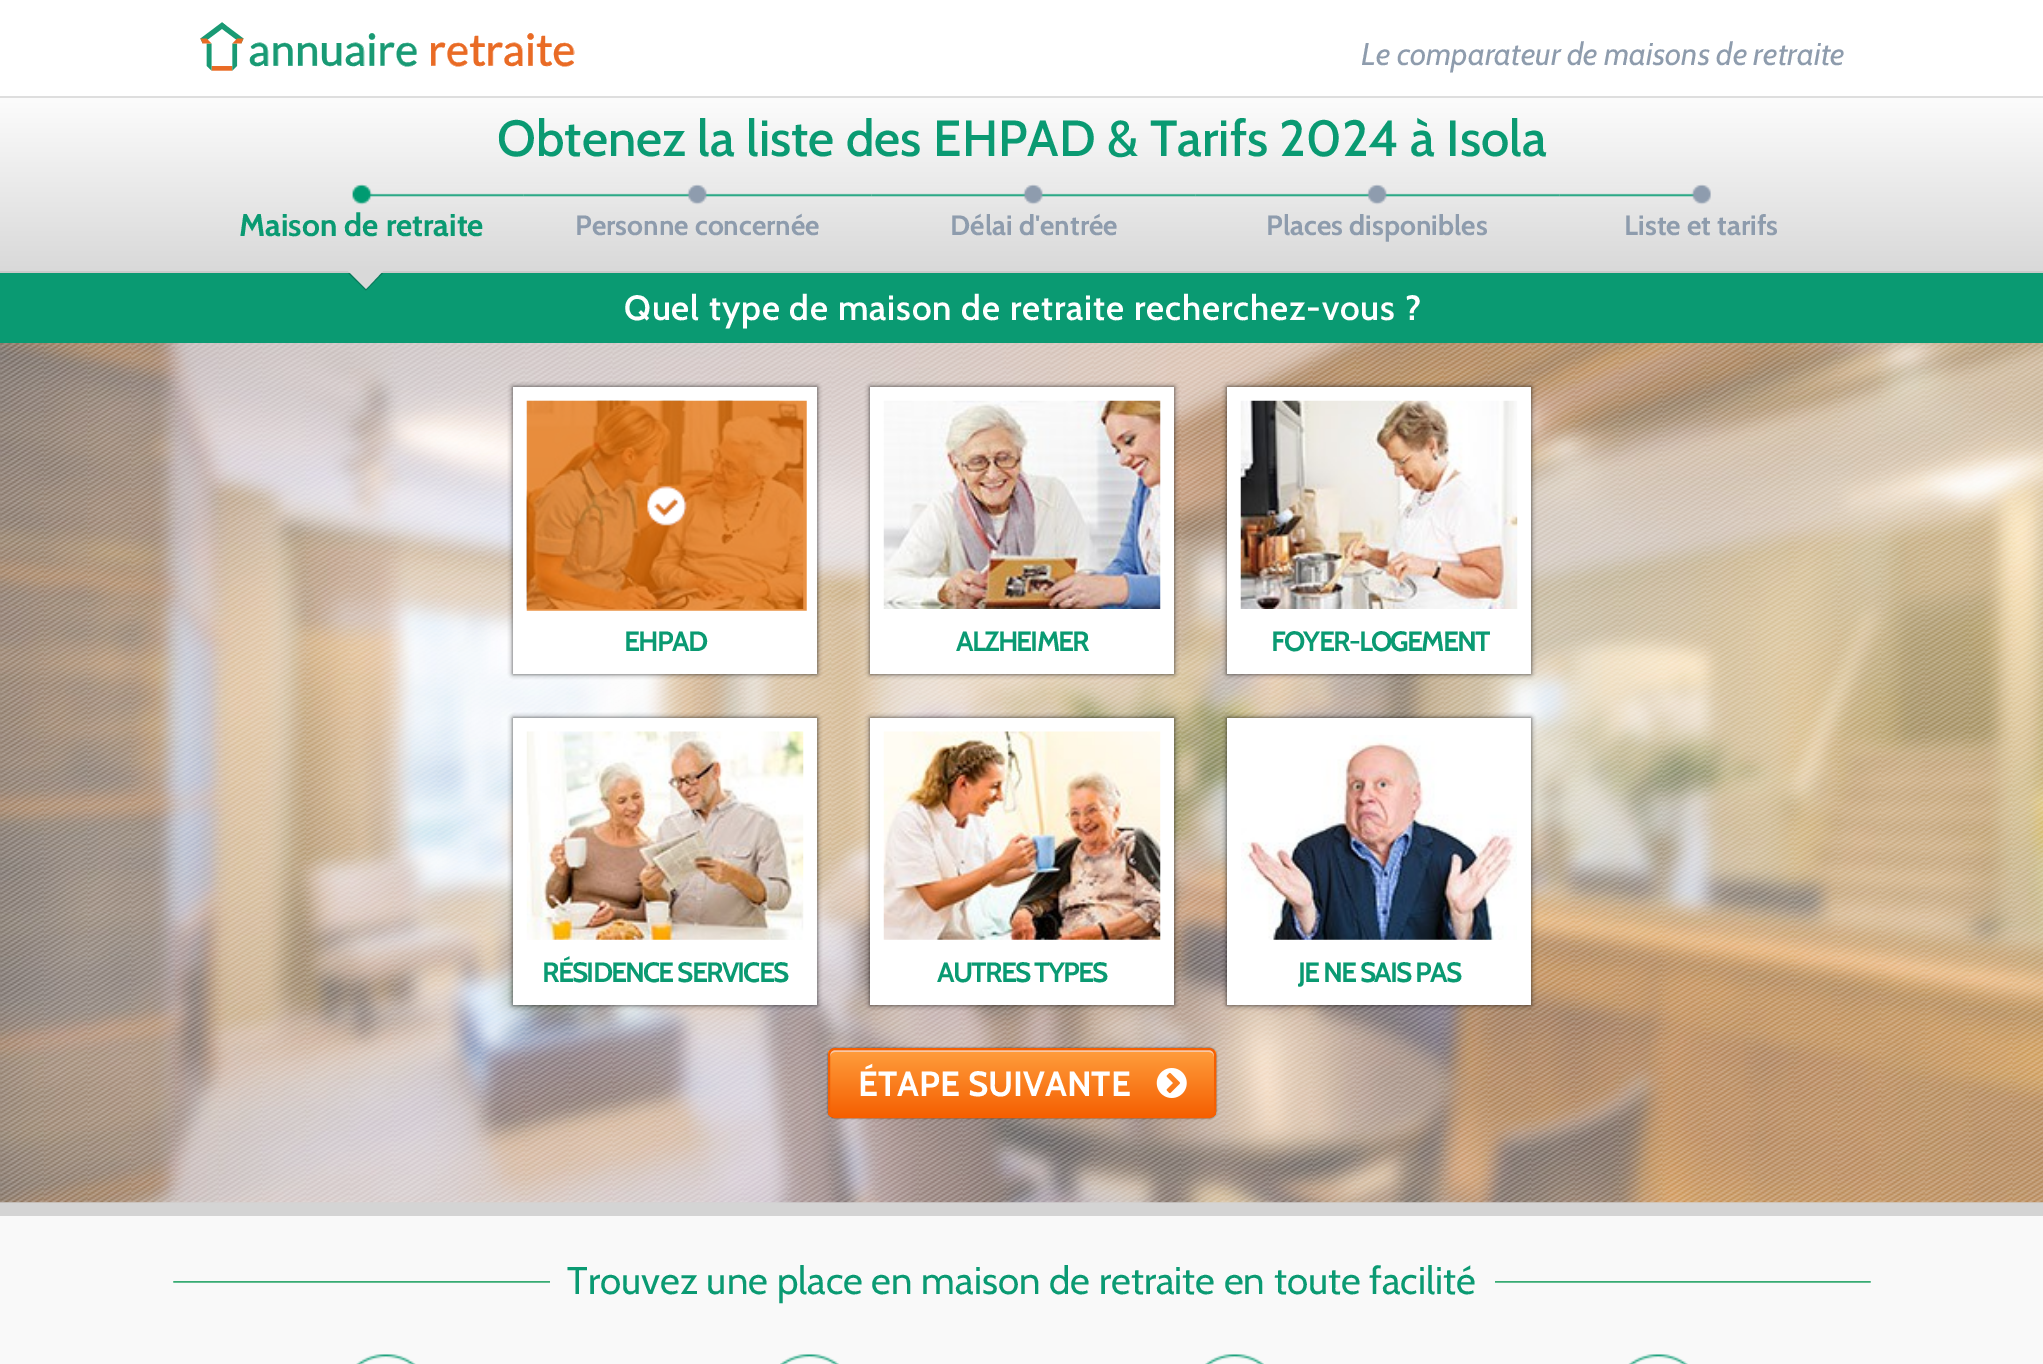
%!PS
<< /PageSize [2043 1364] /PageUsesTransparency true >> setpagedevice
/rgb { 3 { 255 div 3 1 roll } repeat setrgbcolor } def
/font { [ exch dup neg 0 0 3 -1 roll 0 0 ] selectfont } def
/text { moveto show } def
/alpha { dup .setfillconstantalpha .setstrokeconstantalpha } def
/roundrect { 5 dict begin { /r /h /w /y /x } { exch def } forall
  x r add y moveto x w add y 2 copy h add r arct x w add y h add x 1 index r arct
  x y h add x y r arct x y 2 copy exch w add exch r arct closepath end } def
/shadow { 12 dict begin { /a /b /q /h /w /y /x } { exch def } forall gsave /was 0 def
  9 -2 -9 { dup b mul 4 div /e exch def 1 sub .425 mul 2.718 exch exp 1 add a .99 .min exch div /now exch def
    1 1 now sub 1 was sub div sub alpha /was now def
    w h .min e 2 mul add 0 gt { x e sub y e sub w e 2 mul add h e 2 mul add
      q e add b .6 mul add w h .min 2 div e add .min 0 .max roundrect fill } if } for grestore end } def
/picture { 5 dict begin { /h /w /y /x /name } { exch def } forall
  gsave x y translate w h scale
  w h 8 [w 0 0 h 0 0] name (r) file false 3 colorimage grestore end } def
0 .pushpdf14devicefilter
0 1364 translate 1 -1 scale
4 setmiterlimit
212 212 212 rgb
0 0 2043 1364 rectfill
255 255 255 rgb
0 0 2043 96 rectfill
222 222 222 rgb
0 96 2043 2 rectfill
(img_01.rgb) 200 22 375 49 picture
gsave 0 98 moveto 2043 0 rlineto 0 173 rlineto -2043 0 rlineto closepath clip newpath
<< /ShadingType 2 /ColorSpace /DeviceRGB /Coords [1022 98 1022 271] /Extend [true true] /Function << /FunctionType 2 /Domain [0 1] /C0 [0.988 0.988 0.988] /C1 [0.851 0.851 0.851] /N 1 >> >> shfill grestore
202 202 202 rgb
0 271 2043 2 rectfill
(img_02.rgb) 352 184 172 21 picture
10 154 114 rgb
0 273 2043 70 rectfill
8 123 91 rgb
348 273 moveto 35 0 rlineto -17 17.5 rlineto closepath fill
217 217 217 rgb
348 271 moveto 35 0 rlineto -17 18 rlineto closepath fill
(img_03.rgb) 523 184 349 21 picture
(img_04.rgb) 871 184 325 21 picture
(img_05.rgb) 1195 184 365 21 picture
(img_06.rgb) 1559 184 152 21 picture
(img_07.rgb) 0 343 2043 860 picture
(img_08.rgb) 0 343 2043 860 picture
0 0 0 rgb
513 387 304 287 0 2.5 0.7 shadow
255 255 255 rgb
513 387 304 287 rectfill
(img_09.rgb) 526 400 278 209 picture
(img_10.rgb) 526 400 281 211 picture
0 0 0 rgb
870 387 304 287 0 2.5 0.7 shadow
255 255 255 rgb
870 387 304 287 rectfill
(img_11.rgb) 883 400 278 209 picture
0 0 0 rgb
1227 387 304 287 0 2.5 0.7 shadow
255 255 255 rgb
1227 387 304 287 rectfill
(img_12.rgb) 1240 400 278 209 picture
0 0 0 rgb
513 718 304 287 0 2.5 0.7 shadow
255 255 255 rgb
513 718 304 287 rectfill
(img_13.rgb) 526 731 278 209 picture
0 0 0 rgb
870 718 304 287 0 2.5 0.7 shadow
255 255 255 rgb
870 718 304 287 rectfill
(img_14.rgb) 883 731 278 209 picture
0 0 0 rgb
1227 718 304 287 0 2.5 0.7 shadow
255 255 255 rgb
1227 718 304 287 rectfill
(img_15.rgb) 1241 735 276 205 picture
0 0 0 rgb
828 1048 388 70 7 1 0.6 shadow
gsave
828 1048 388 70 7 roundrect clip newpath
gsave 828 1050 moveto 388 0 rlineto 0 67 rlineto -388 0 rlineto closepath clip newpath
<< /ShadingType 2 /ColorSpace /DeviceRGB /Coords [1022 1050 1022 1117] /Extend [true true] /Function << /FunctionType 2 /Domain [0 1] /C0 [1 0.62 0.239] /C1 [0.961 0.373 0.004] /N 1 >> >> shfill grestore
grestore
248 200 168 rgb
835 1052 moveto 374 0 rlineto 3 0 5 2 5 5 rcurveto 0 56 rlineto -1 3 rlineto 1 -1 2 -3 2 -4 rcurveto 0 -57 rlineto 0 -3 -2 -5 -5 -5 rcurveto -375 0 rlineto -3 0 -5 2 -5 5 rcurveto 0 2 rlineto 0 -3 2 -5 5 -5 rcurveto closepath fill
245 95 1 rgb
2 setlinewidth
829 1049 386 68 6 roundrect stroke
(img_16.rgb) 1156 1068 31 30 picture
249 249 249 rgb
0 1216 2043 148 rectfill
(img_17.rgb) 173 1281 1698 2 picture
550 1281 945 2 rectfill
(img_18.rgb) 356 1354 60 10 picture
(img_19.rgb) 780 1354 59 10 picture
(img_20.rgb) 1205 1354 59 10 picture
(img_21.rgb) 1628 1354 60 10 picture
/Cabin-Italic 31.5 font
142 156 173 rgb
(Le comparateur de maisons de retraite) 1361 65 text
/Cabin-Medium 50.75 font
10 154 114 rgb
(Obtenez la liste des EHPAD & Tarifs 2024 à Isola) 497 156 text
/Cabin-Bold 31.5 font
(Maison de retraite) 239 236 text
/Cabin-Bold 28 font
142 156 173 rgb
(Personne concernée) 575 235 text
(Délai d'entrée) 950 235 text
(Places disponibles) 1266 235 text
(Liste et tarifs) 1624 235 text
/Cabin-SemiBold 35 font
255 255 255 rgb
624 320 moveto 0.9 0 (Quel type de maison de retraite recherchez-vous ?) ashow
/Cabin-Bold 28 font
10 154 114 rgb
624 651 moveto -1.75 0 (EHPAD) ashow
956 651 moveto -1.75 0 (ALZHEIMER) ashow
1271 651 moveto -1.75 0 (FOYER-LOGEMENT) ashow
542 982 moveto -1.75 0 (RÉSIDENCE SERVICES) ashow
937 982 moveto -1.75 0 (AUTRES TYPES) ashow
1298 982 moveto -1.75 0 (JE NE SAIS PAS) ashow
/Cabin-Bold 35 font
255 255 255 rgb
(ÉTAPE SUIVANTE) 858 1096 text
/Cabin-Regular 38.5 font
10 154 114 rgb
(Trouvez une place en maison de retraite en toute facilité) 567 1294 text
.poppdf14devicefilter showpage
